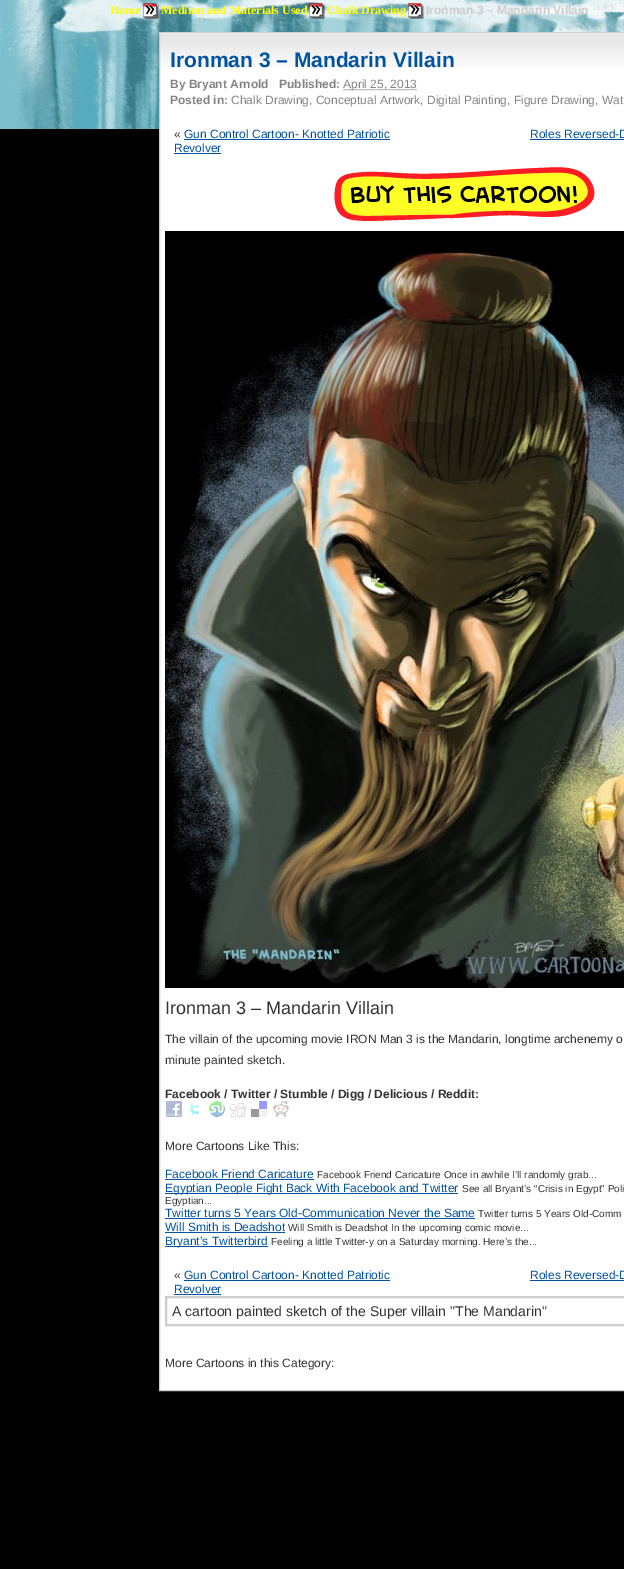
%!PS
<< /PageSize [624 1569] >> setpagedevice
/rgb { 3 { 255 div 3 1 roll } repeat setrgbcolor } def
/font { [ exch dup neg 0 0 3 -1 roll 0 0 ] selectfont } def
/text { moveto show } def
/picture { 5 dict begin { /h /w /y /x /name } { exch def } forall
  gsave x y translate w h scale
  w h 8 [w 0 0 h 0 0] name (r) file false 3 colorimage grestore end } def
0 1569 translate 1 -1 scale
4 setmiterlimit
0 0 0 rgb
0 0 624 1569 rectfill
(img_01.rgb) 0 0 624 129 picture
(img_02.rgb) 143 3 16 16 picture
(img_03.rgb) 309 3 16 16 picture
(img_04.rgb) 408 3 16 16 picture
255 255 255 rgb
160 33 464 1357 rectfill
(img_05.rgb) 160 34 464 33 picture
204 204 204 rgb
159.5 32.5 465 1358 rectstroke
132 132 133 rgb
[1 1] 0 setdash
343.5 89.5 moveto 74 0 rlineto stroke
0 82 163 rgb
184 139 206 1 rectfill
174 153 47 1 rectfill
530 139 94 1 rectfill
(img_06.rgb) 334 167 261 54 picture
(img_07.rgb) 165 231 459 757 picture
(img_08.rgb) 166 1101 16 16 picture
(img_09.rgb) 189 1102 10 13 picture
(img_10.rgb) 209 1101 16 16 picture
(img_11.rgb) 230 1103 16 14 picture
(img_12.rgb) 251 1101 16 16 picture
(img_13.rgb) 273 1101 16 16 picture
165 1179 149 1 rectfill
165 1193 293 1 rectfill
165 1218 310 1 rectfill
165 1232 120 1 rectfill
165 1246 103 1 rectfill
184 1280 206 1 rectfill
174 1294 47 1 rectfill
530 1280 94 1 rectfill
204 204 204 rgb
2 setlinewidth
[] 0 setdash
166 1297 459 28 rectstroke
/LiberationSerif-Bold 12 font
255 255 0 rgb
(Home) 110 14 text
(Medium and Materials Used) 161 14 text
(Chalk Drawing) 327 14 text
/LiberationSans-Bold 12 font
204 204 204 rgb
(Ironman 3 – Mandarin Villain) 426 14 text
/LiberationSans-Bold 21 font
0 82 163 rgb
(Ironman 3 – Mandarin Villain) 170 67 text
/LiberationSans-Bold 12 font
132 132 133 rgb
(By Bryant Arnold) 170 88 text
(Published:) 279 88 text
/LiberationSans-Regular 12 font
(April 25, 2013) 343 88 text
/LiberationSans-Bold 12 font
(Posted in:) 170 104 text
/LiberationSans-Regular 12 font
(Chalk Drawing, Conceptual Artwork, Digital Painting, Figure Drawing, Wat) 231 104 text
51 51 51 rgb
(«) 174 138 text
0 82 163 rgb
(Gun Control Cartoon- Knotted Patriotic) 184 138 text
(Revolver) 174 152 text
(Roles Reversed-D) 530 138 text
/LiberationSans-Regular 18 font
51 51 51 rgb
(Ironman 3 – Mandarin Villain) 165 1014 text
/LiberationSans-Regular 12 font
(The villain of the upcoming movie IRON Man 3 is the Mandarin, longtime archenemy o) 165 1043 text
(minute painted sketch.) 165 1064 text
/LiberationSans-Bold 12 font
(Facebook / Twitter / Stumble / Digg / Delicious / Reddit:) 165 1098 text
/LiberationSans-Regular 12 font
(More Cartoons Like This:) 165 1150 text
0 82 163 rgb
(Facebook Friend Caricature) 165 1178 text
/LiberationSans-Regular 10 font
51 51 51 rgb
(Facebook Friend Caricature Once in awhile I’ll randomly grab...) 317 1178 text
/LiberationSans-Regular 12 font
0 82 163 rgb
(Egyptian People Fight Back With Facebook and Twitter) 165 1192 text
/LiberationSans-Regular 10 font
51 51 51 rgb
(See all Bryant’s “Crisis in Egypt” Poli) 462 1192 text
(Egyptian...) 165 1204 text
/LiberationSans-Regular 12 font
0 82 163 rgb
(Twitter turns 5 Years Old-Communication Never the Same) 165 1217 text
/LiberationSans-Regular 10 font
51 51 51 rgb
(Twitter turns 5 Years Old-Comm) 478 1217 text
/LiberationSans-Regular 12 font
0 82 163 rgb
(Will Smith is Deadshot) 165 1231 text
/LiberationSans-Regular 10 font
51 51 51 rgb
(Will Smith is Deadshot In the upcoming comic movie...) 288 1231 text
/LiberationSans-Regular 12 font
0 82 163 rgb
(Bryant’s Twitterbird) 165 1245 text
/LiberationSans-Regular 10 font
51 51 51 rgb
(Feeling a little Twitter-y on a Saturday morning. Here’s the...) 271 1245 text
/LiberationSans-Regular 12 font
(«) 174 1279 text
0 82 163 rgb
(Gun Control Cartoon- Knotted Patriotic) 184 1279 text
(Revolver) 174 1293 text
(Roles Reversed-D) 530 1279 text
/LiberationSans-Regular 14.05 font
51 51 51 rgb
(A cartoon painted sketch of the Super villain "The Mandarin") 172 1316 text
/LiberationSans-Regular 12 font
(More Cartoons in this Category:) 165 1367 text
showpage
